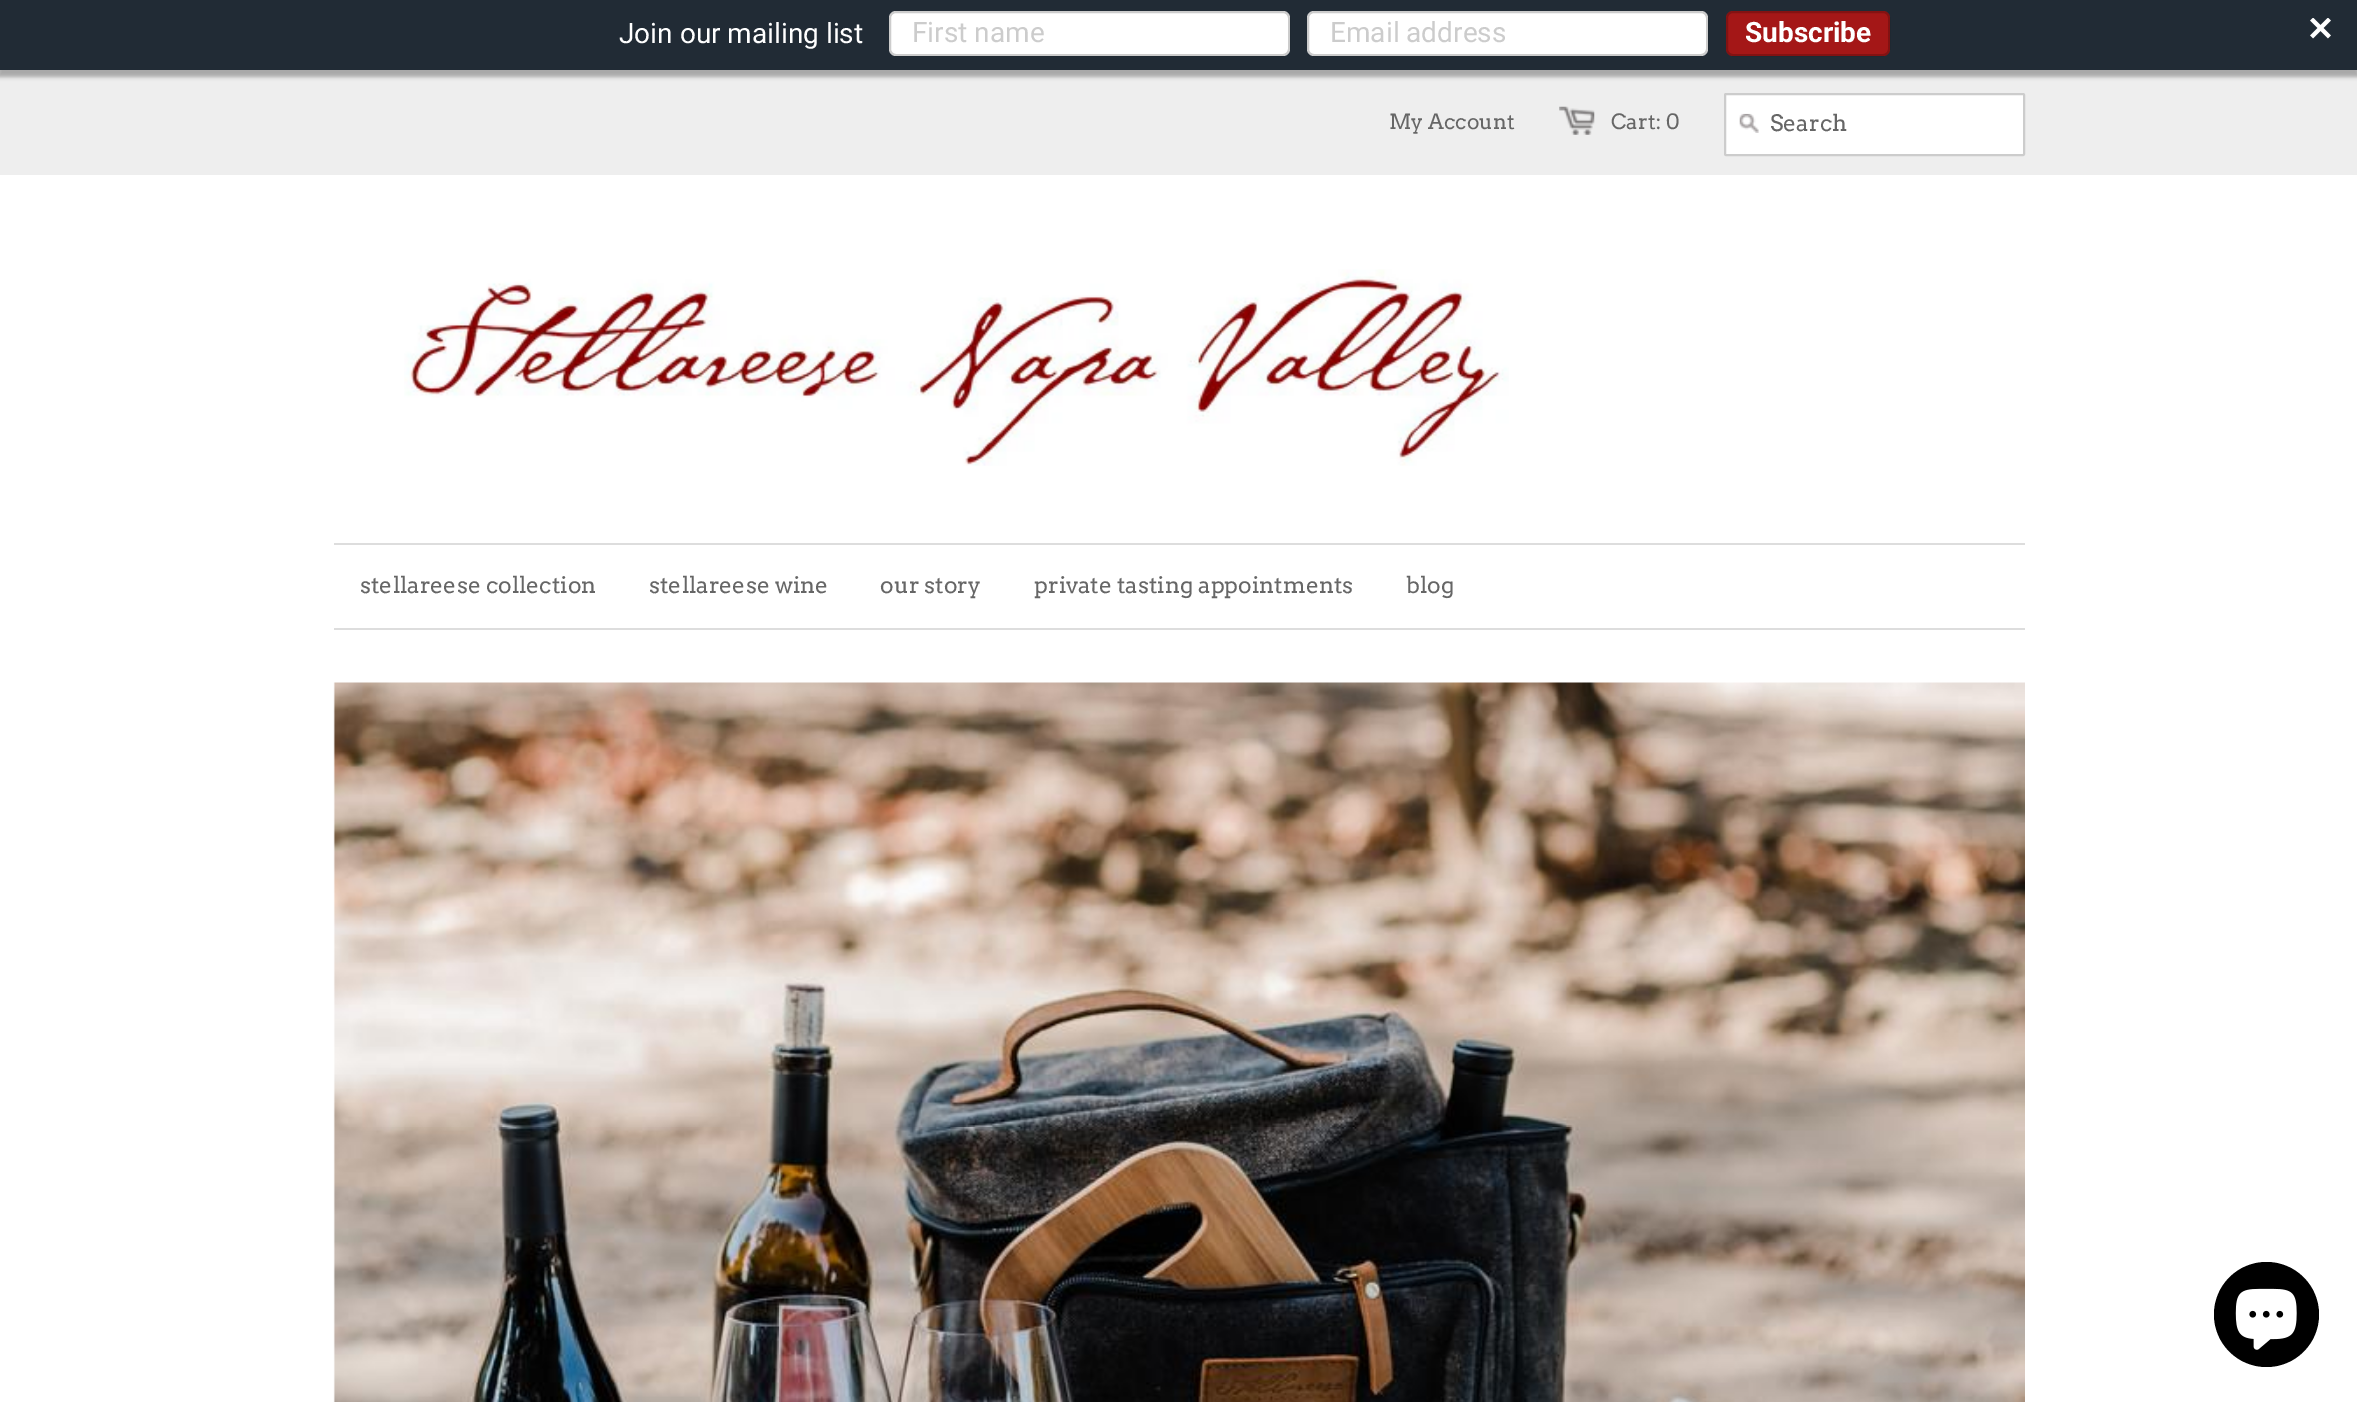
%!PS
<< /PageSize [2357 1402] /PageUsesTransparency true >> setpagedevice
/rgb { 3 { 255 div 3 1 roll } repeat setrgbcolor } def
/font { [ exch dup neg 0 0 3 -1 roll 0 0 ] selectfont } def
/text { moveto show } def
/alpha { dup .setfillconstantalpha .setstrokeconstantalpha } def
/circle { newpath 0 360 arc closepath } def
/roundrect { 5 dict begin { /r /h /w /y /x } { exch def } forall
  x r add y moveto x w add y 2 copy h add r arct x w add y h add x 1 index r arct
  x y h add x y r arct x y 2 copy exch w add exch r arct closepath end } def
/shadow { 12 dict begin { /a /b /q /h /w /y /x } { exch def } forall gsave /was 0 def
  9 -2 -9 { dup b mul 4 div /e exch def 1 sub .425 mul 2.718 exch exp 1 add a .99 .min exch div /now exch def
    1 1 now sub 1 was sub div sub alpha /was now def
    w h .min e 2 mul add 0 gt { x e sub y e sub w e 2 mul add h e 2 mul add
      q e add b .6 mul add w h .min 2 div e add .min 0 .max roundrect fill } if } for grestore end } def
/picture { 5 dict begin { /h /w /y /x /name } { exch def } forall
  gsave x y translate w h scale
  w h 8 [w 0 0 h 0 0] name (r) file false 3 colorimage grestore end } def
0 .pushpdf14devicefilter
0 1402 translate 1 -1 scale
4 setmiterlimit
255 255 255 rgb
0 0 2357 1402 rectfill
238 238 238 rgb
0 70 2357 105 rectfill
0 0 0 rgb
-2 4 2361 73 0 2 0.3 shadow
33 43 53 rgb
0 0 2357 70 rectfill
255 255 255 rgb
889 11 401 45 7 roundrect fill
0.2 alpha
0 0 0 rgb
2 setlinewidth
890 12 399 43 6 roundrect stroke
1 alpha
255 255 255 rgb
1307 11 401 45 7 roundrect fill
0.2 alpha
0 0 0 rgb
1308 12 399 43 6 roundrect stroke
1 alpha
164 23 23 rgb
1726 11 164 45 7 roundrect fill
0.2 alpha
0 0 0 rgb
1727 12 162 43 6 roundrect stroke
1 alpha
(img_01.rgb) 2310 18 21 21 picture
(img_02.rgb) 1559 106 36 29 picture
255 255 255 rgb
1725 94 299 61 1 roundrect gsave fill grestore
204 204 204 rgb
stroke
(img_03.rgb) 1739 113 20 20 picture
(img_04.rgb) 404 269 1105 197 picture
221 221 221 rgb
334 543 1691 2 rectfill
334 628 1691 2 rectfill
(img_05.rgb) 333 682 1692 720 picture
0 0 0 rgb
2266.5 1314.5 52.5 circle fill
(img_06.rgb) 2235 1288 62 62 picture
/Roboto-Regular 28 font
255 255 255 rgb
(Join our mailing list) 619 43 text
204 204 204 rgb
(First name) 912 42 text
(Email address) 1330 42 text
/Roboto-Bold 28 font
255 255 255 rgb
(Subscribe) 1745 42 text
/Arvo-Regular 21 font
102 102 102 rgb
(My Account) 1389 129 text
(Cart: 0) 1611 129 text
/Arvo-Regular 22.75 font
(Search) 1770 131 text
(stellareese collection) 360 593 text
(stellareese wine) 649 593 text
(our story) 880 593 text
(private tasting appointments) 1034 593 text
(blog) 1406 593 text
.poppdf14devicefilter showpage
